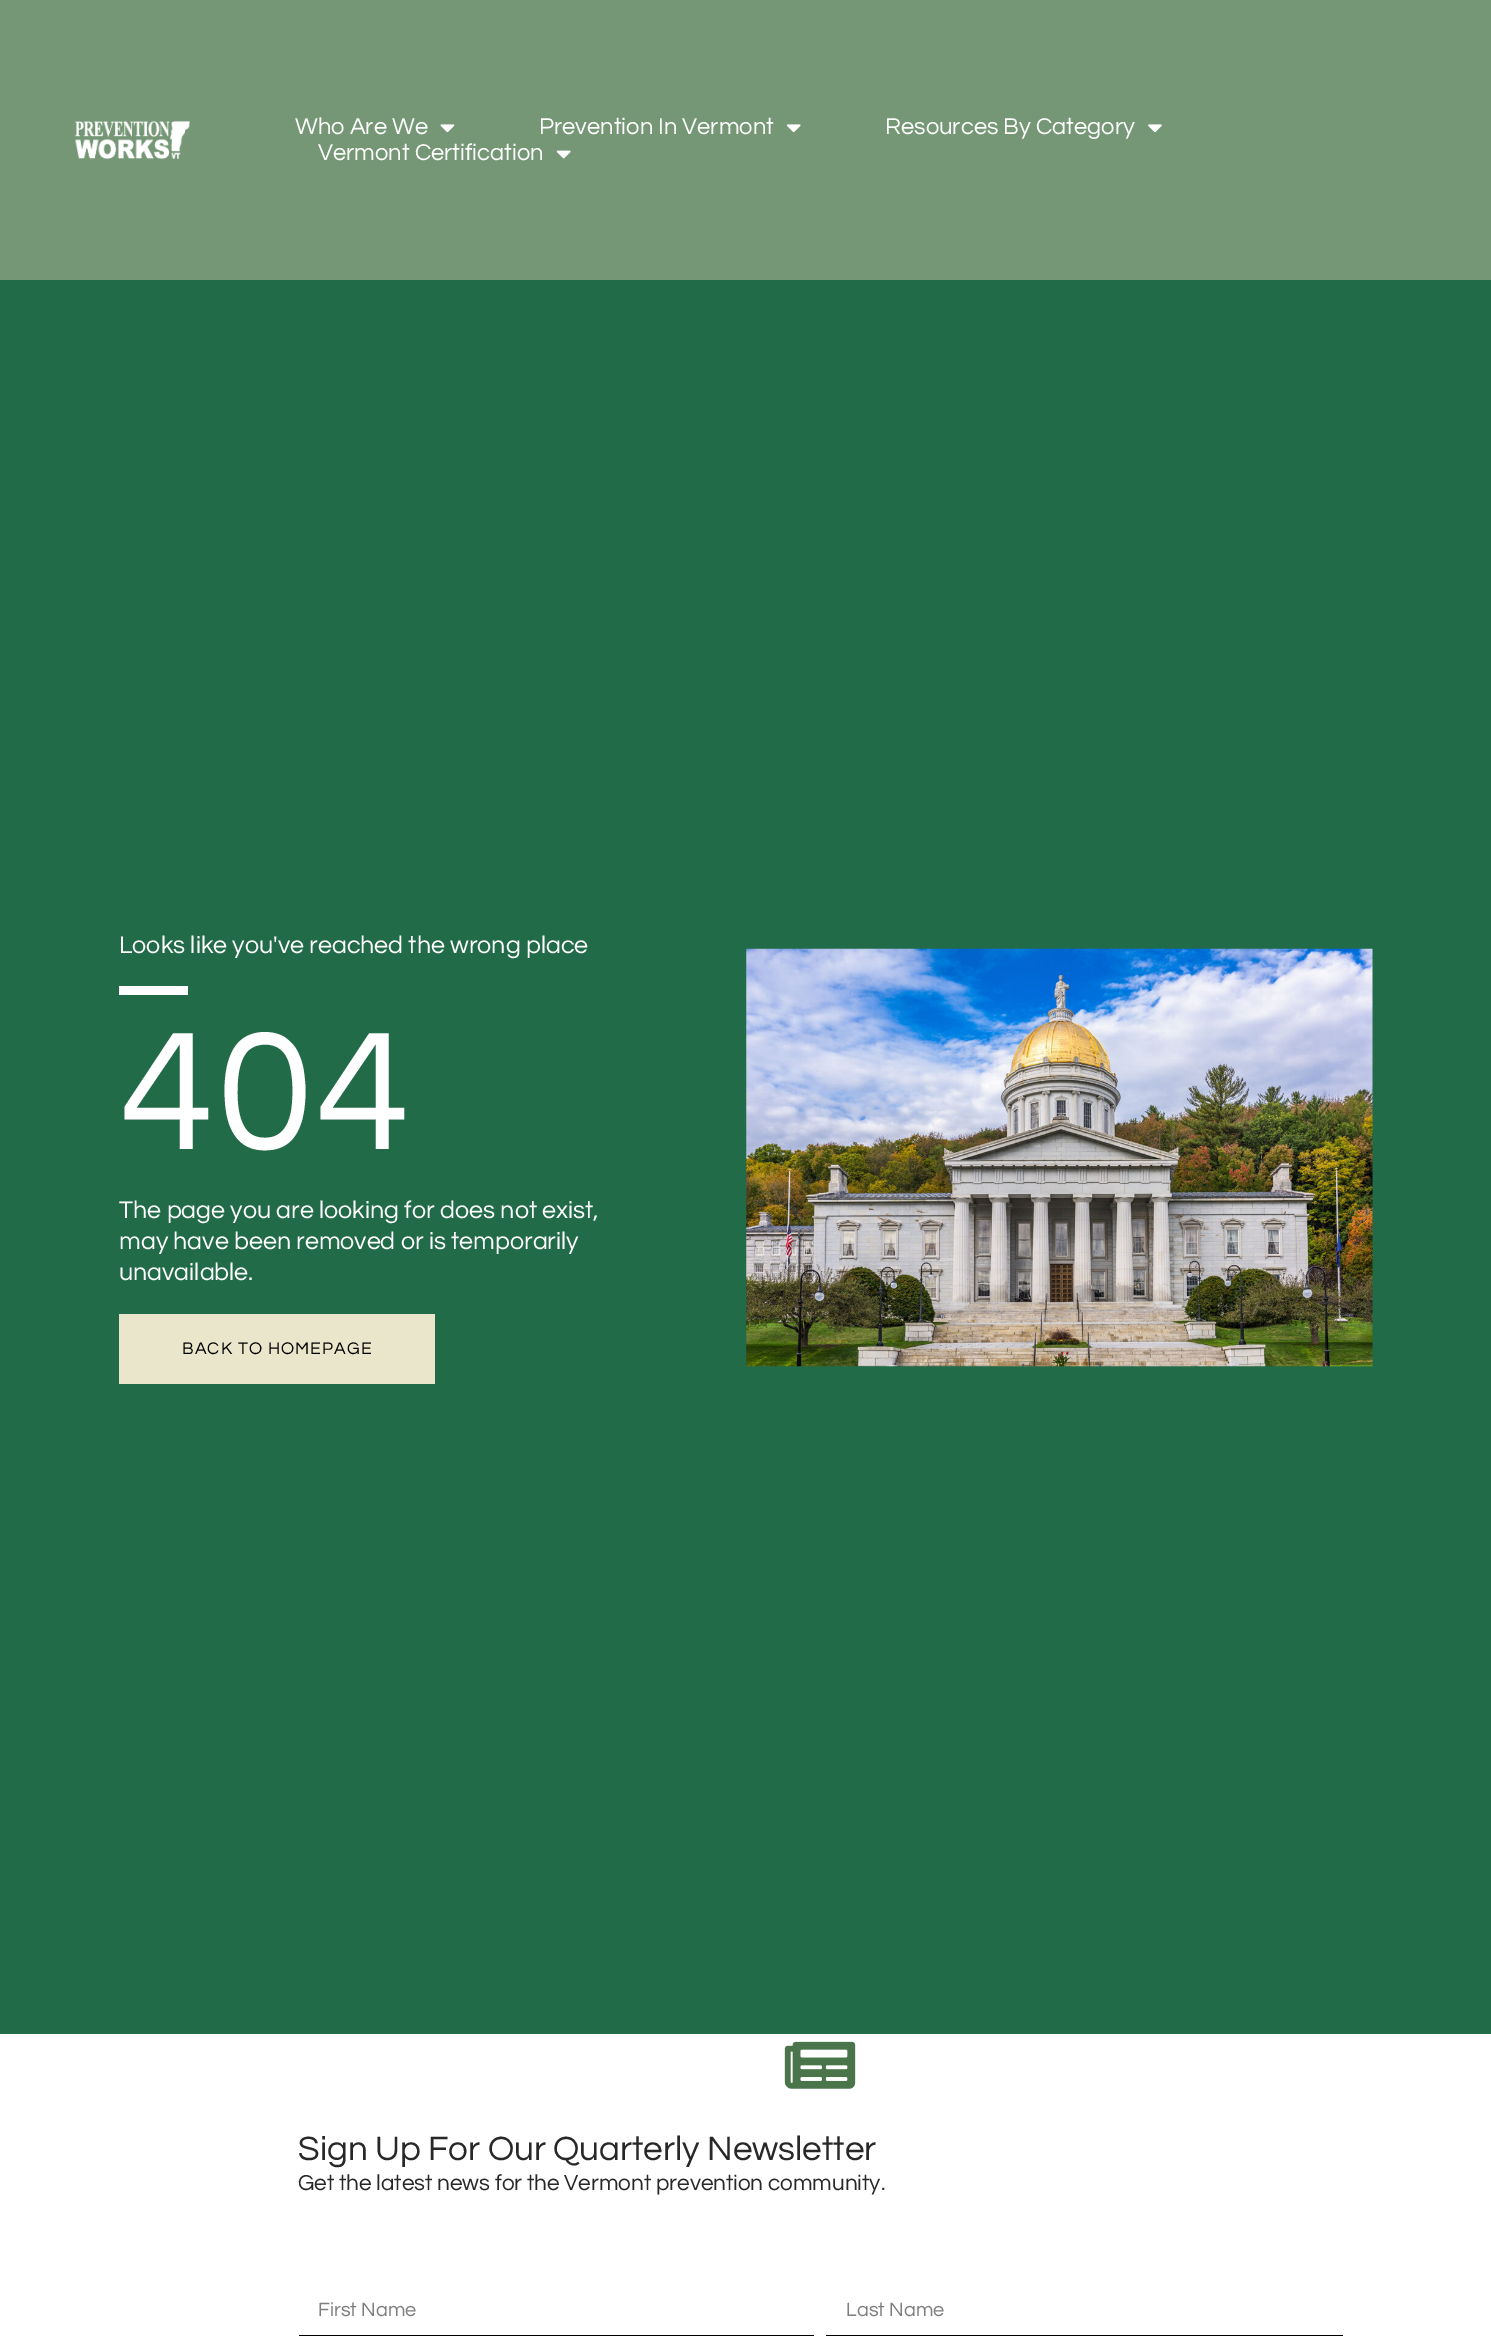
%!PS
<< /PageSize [1491 2337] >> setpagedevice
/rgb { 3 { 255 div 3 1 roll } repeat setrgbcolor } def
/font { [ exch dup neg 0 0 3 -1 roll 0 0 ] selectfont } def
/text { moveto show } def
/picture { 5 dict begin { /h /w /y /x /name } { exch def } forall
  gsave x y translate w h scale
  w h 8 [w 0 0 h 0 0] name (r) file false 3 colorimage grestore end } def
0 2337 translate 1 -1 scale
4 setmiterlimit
34 107 73 rgb
0 0 1491 2337 rectfill
117 151 118 rgb
0 0 1491 280 rectfill
(img_01.rgb) 74 120 116 39 picture
(img_02.rgb) 440 124 15 9 picture
(img_03.rgb) 786 124 15 9 picture
(img_04.rgb) 1148 124 14 9 picture
(img_05.rgb) 556 150 15 9 picture
255 255 255 rgb
119 986 69 9 rectfill
234 230 203 rgb
119 1314 316 70 rectfill
(img_06.rgb) 746 948 627 419 picture
255 255 255 rgb
0 2034 1491 303 rectfill
(img_07.rgb) 784 2041 72 48 picture
0 0 0 rgb
299 2335 515 1 rectfill
826 2335 517 1 rectfill
/Questrial-Regular 23.75 font
255 255 255 rgb
(Who Are We) 295 134 text
(Prevention In Vermont) 539 134 text
(Resources By Category) 885 134 text
(Vermont Certification) 318 160 text
/Questrial-Regular 25 font
(Looks like you've reached the wrong place) 119 953 text
/Questrial-Regular 175 font
119 1149 moveto 1.5 0 (404) ashow
/Questrial-Regular 25 font
(The page you are looking for does not exist,) 119 1218 text
(may have been removed or is temporarily) 119 1249 text
(unavailable.) 119 1280 text
/Questrial-Regular 17.5 font
0 0 0 rgb
182 1354 moveto 1.1 0 (BACK TO HOMEPAGE) ashow
/Questrial-Regular 35 font
40 40 40 rgb
(Sign Up For Our Quarterly Newsletter) 298 2160 text
/Questrial-Regular 22.5 font
(Get the latest news for the Vermont prevention community.) 298 2190 text
/Questrial-Regular 20 font
126 126 126 rgb
(First Name) 318 2316 text
(Last Name) 846 2316 text
showpage
